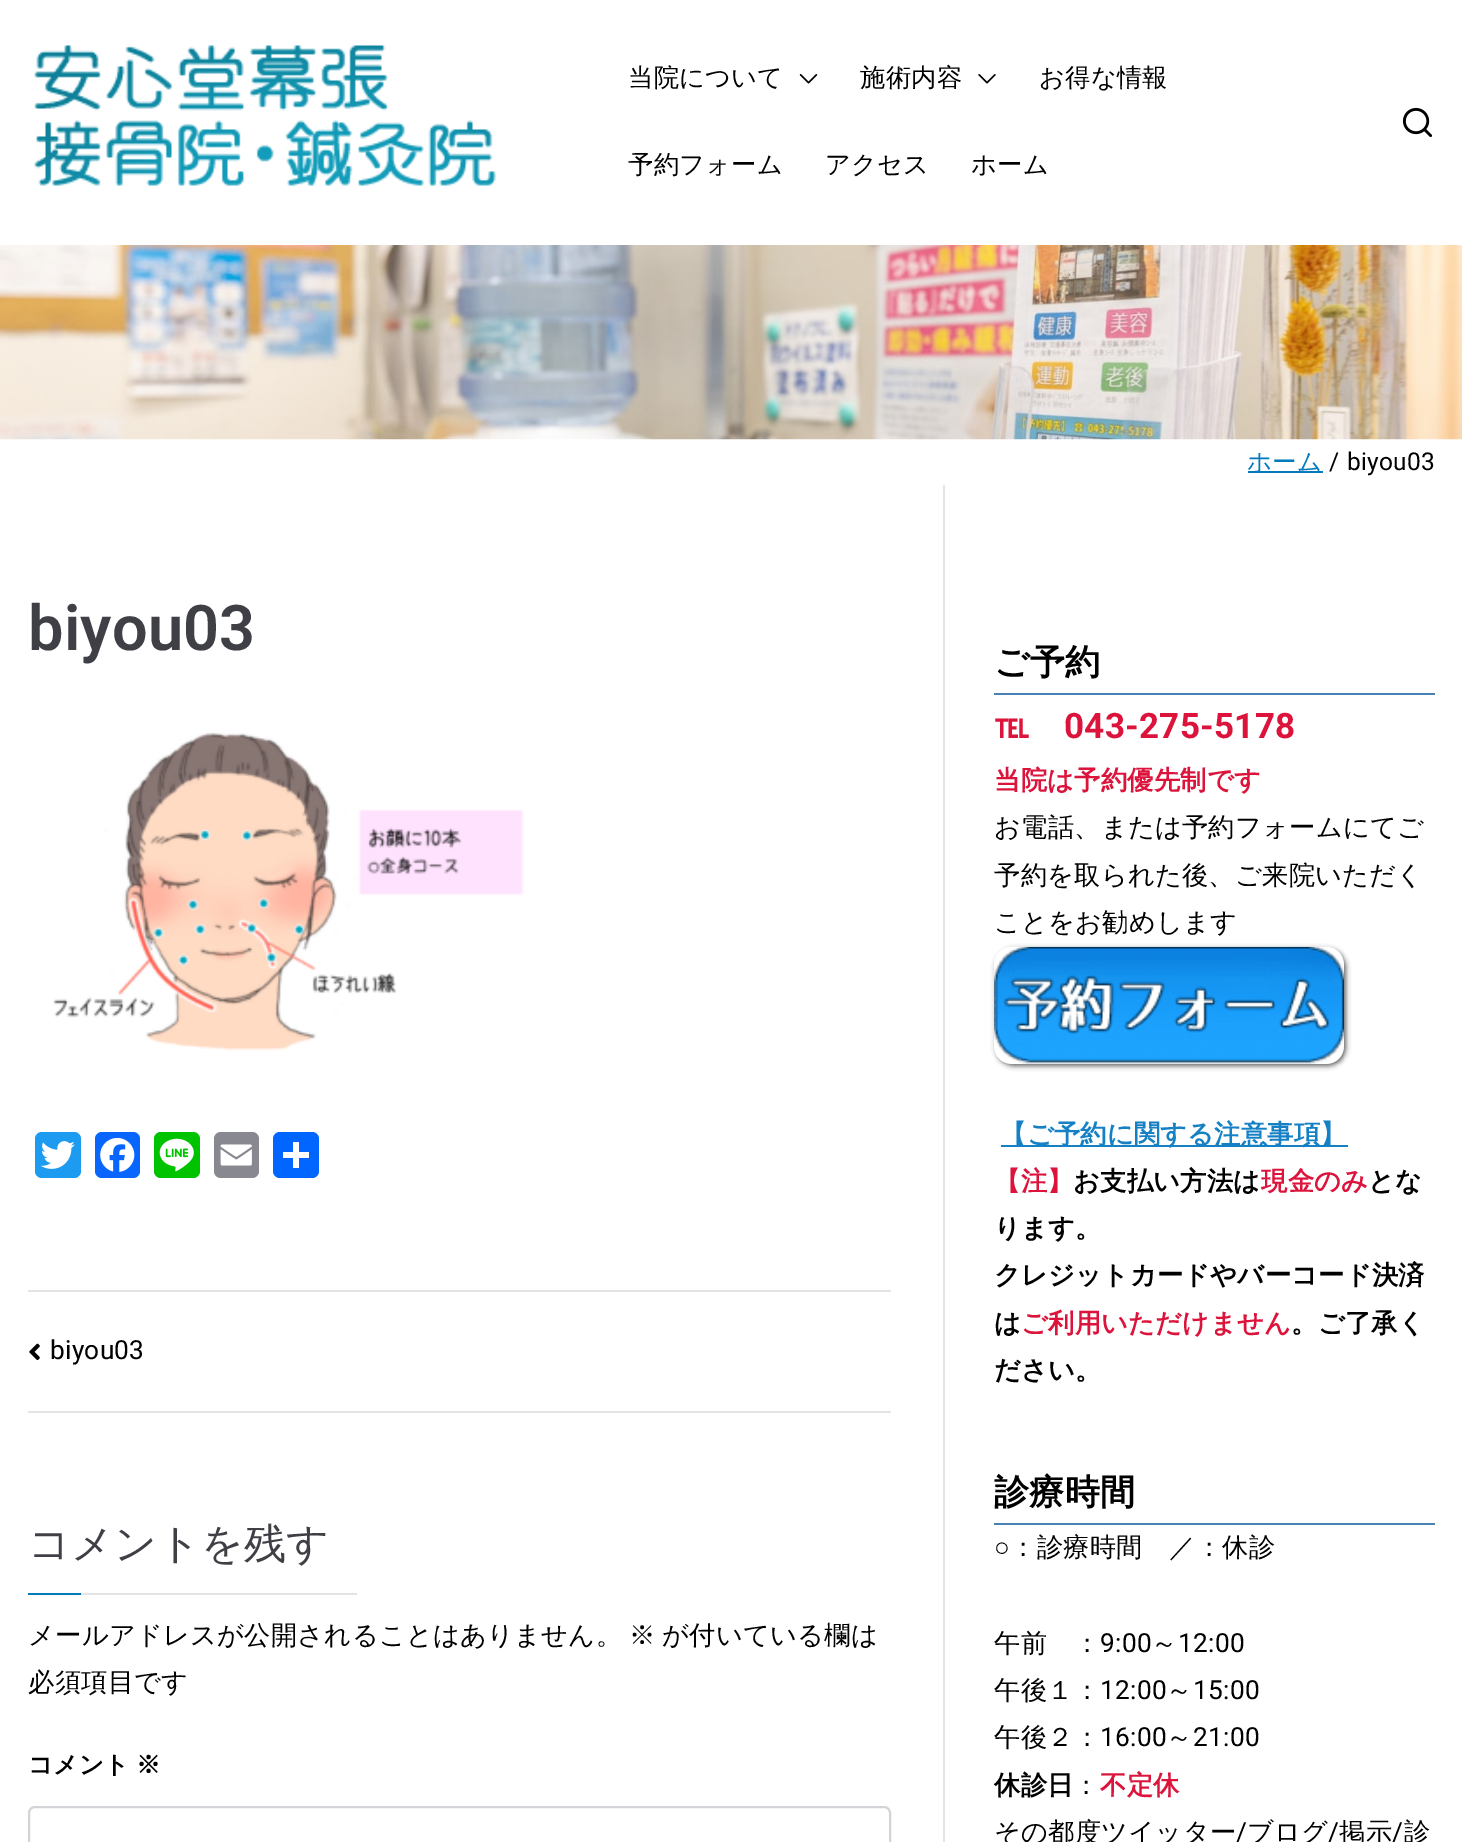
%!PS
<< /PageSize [1462 1842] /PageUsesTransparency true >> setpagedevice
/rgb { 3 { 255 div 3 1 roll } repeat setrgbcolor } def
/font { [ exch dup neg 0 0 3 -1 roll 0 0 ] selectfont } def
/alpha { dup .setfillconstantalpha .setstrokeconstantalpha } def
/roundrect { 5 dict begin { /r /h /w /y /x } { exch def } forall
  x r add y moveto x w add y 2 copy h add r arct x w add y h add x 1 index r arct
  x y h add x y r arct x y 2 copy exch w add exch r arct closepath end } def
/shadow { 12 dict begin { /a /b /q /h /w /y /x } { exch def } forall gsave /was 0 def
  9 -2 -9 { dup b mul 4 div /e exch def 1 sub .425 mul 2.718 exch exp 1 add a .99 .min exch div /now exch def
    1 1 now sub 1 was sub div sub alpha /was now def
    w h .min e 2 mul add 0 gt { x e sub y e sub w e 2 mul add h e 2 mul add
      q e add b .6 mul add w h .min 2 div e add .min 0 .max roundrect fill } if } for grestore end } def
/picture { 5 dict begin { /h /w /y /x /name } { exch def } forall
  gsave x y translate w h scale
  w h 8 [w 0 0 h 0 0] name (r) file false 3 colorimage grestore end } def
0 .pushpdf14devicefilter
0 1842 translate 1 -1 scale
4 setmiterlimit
255 255 255 rgb
0 0 1462 1842 rectfill
(img_01.rgb) 34 45 462 141 picture
(img_02.rgb) 799 74 19 10 picture
(img_03.rgb) 978 74 18 10 picture
(img_04.rgb) 1402 107 31 31 picture
(img_05.rgb) 0 245 1462 195 picture
2 122 187 rgb
1248 471 75 2 rectfill
(img_06.rgb) 53 732 471 319 picture
29 155 240 rgb
35 1132 46 46 7 roundrect fill
(img_07.rgb) 40 1141 35 28 picture
8 102 255 rgb
95 1132 45 46 7 roundrect fill
(img_08.rgb) 100 1137 35 35 picture
0 195 0 rgb
154 1132 46 46 7 roundrect fill
(img_09.rgb) 159 1138 35 34 picture
136 137 144 rgb
214 1132 45 46 7 roundrect fill
(img_10.rgb) 220 1144 32 22 picture
1 102 255 rgb
273 1132 46 46 7 roundrect fill
255 255 255 rgb
293 1142 6 26 rectfill
283 1152 26 6 rectfill
228 228 231 rgb
28 1290 863 2 rectfill
28 1411 863 2 rectfill
(img_11.rgb) 29 1343 11 18 picture
81 1593 276 2 rectfill
2 122 187 rgb
28 1593 53 2 rectfill
212 212 216 rgb
2 setlinewidth
29 1807 861 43 6 roundrect stroke
228 228 231 rgb
943 485 2 1357 rectfill
70 130 180 rgb
994 693 441 2 rectfill
gsave
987 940 moveto 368 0 rlineto 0 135 rlineto -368 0 rlineto closepath 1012 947 moveto 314 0 rlineto 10 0 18 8 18 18 rcurveto 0 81 rlineto 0 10 -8 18 -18 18 rcurveto -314 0 rlineto -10 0 -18 -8 -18 -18 rcurveto 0 -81 rlineto 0 -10 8 -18 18 -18 rcurveto closepath eoclip newpath
102 102 102 rgb
996 949 350 117 18 2.5 1 shadow
grestore
(img_12.rgb) 994 946 350 118 picture
21 129 196 rgb
1001 1145 347 2 rectfill
70 130 180 rgb
994 1523 441 2 rectfill
/WenQuanYiZenHei-Medium 25.25 font
0 0 0 rgb
628 86 moveto 0.25 0 (当院について) ashow
860 86 moveto 0.25 0 (施術内容) ashow
1039 86 moveto 0.25 0 (お得な情報) ashow
628 173 moveto 0.25 0 (予約フォーム) ashow
825 173 moveto 0.25 0 (アクセス) ashow
971 173 moveto 0.25 0 (ホーム) ashow
/WenQuanYiZenHei-Medium 24.5 font
2 122 187 rgb
1247 470 moveto 0.25 0 (ホーム) ashow
/Roboto-Regular 24.5 font
0 0 0 rgb
1329 470 moveto 0.25 0 (/) ashow
1347 470 moveto 0.25 0 (biyou03) ashow
/Roboto-SemiBold 63 font
63 63 70 rgb
28 650 moveto 0.25 0 (biyou03) ashow
/Roboto-Regular 26.25 font
0 0 0 rgb
50 1359 moveto 0.25 0 (biyou03) ashow
/WenQuanYiZenHei-Medium 42 font
63 63 70 rgb
28 1558 moveto 0.25 0 (コメントを残す) ashow
/WenQuanYiZenHei-Medium 26.25 font
0 0 0 rgb
28 1644 moveto 0.25 0 (メールアドレスが公開されることはありません。) ashow
629 1644 moveto 0.25 0 (※) ashow
662 1644 moveto 0.25 0 (が付いている欄は) ashow
28 1691 moveto 0.25 0 (必須項目です) ashow
/WenQuanYiZenHei-Bold 24.5 font
28 1773 moveto 0.25 0 (コメント) ashow
136 1773 moveto 0.25 0 (※) ashow
/WenQuanYiZenHei-Bold 35 font
994 674 moveto 0.25 0 (ご予約) ashow
220 20 60 rgb
994 738 moveto 0.25 0 (℡) ashow
/Roboto-Bold 35 font
1064 738 moveto 0.25 0 (043-275-5178) ashow
/WenQuanYiZenHei-Bold 26.25 font
994 789 moveto 0.25 0 (当院は予約優先制です) ashow
/WenQuanYiZenHei-Medium 26.25 font
0 0 0 rgb
994 836 moveto 0.25 0 (お電話、または予約フォームにてご) ashow
994 884 moveto 0.25 0 (予約を取られた後、ご来院いただく) ashow
994 931 moveto 0.25 0 (ことをお勧めします) ashow
/WenQuanYiZenHei-Bold 26.25 font
21 129 196 rgb
1000 1143 moveto 0.25 0 (【ご予約に関する注意事項】) ashow
220 20 60 rgb
994 1190 moveto 0.25 0 (【注】) ashow
0 0 0 rgb
1073 1190 moveto 0.25 0 (お支払い方法は) ashow
220 20 60 rgb
1261 1190 moveto 0.25 0 (現金のみ) ashow
0 0 0 rgb
1368 1190 moveto 0.25 0 (とな) ashow
994 1237 moveto 0.25 0 (ります。) ashow
994 1284 moveto 0.25 0 (クレジットカードやバーコード決済) ashow
994 1332 moveto 0.25 0 (は) ashow
220 20 60 rgb
1021 1332 moveto 0.25 0 (ご利用いただけません) ashow
0 0 0 rgb
1291 1332 moveto 0.25 0 (。ご了承く) ashow
994 1379 moveto 0.25 0 (ださい。) ashow
/WenQuanYiZenHei-Bold 35 font
994 1504 moveto 0.25 0 (診療時間) ashow
/LiberationSans-Regular 26.25 font
994 1556 moveto 0.25 0 (○) ashow
/WenQuanYiZenHei-Medium 26.25 font
1010 1556 moveto 0.25 0 (：診療時間　／：休診) ashow
994 1652 moveto 0.25 0 (午前　：) ashow
/Roboto-Regular 26.25 font
1100 1652 moveto 0.25 0 (9:00) ashow
/WenQuanYiZenHei-Medium 26.25 font
1151 1652 moveto 0.25 0 (～) ashow
/Roboto-Regular 26.25 font
1178 1652 moveto 0.25 0 (12:00) ashow
/WenQuanYiZenHei-Medium 26.25 font
994 1699 moveto 0.25 0 (午後１：) ashow
/Roboto-Regular 26.25 font
1100 1699 moveto 0.25 0 (12:00) ashow
/WenQuanYiZenHei-Medium 26.25 font
1166 1699 moveto 0.25 0 (～) ashow
/Roboto-Regular 26.25 font
1193 1699 moveto 0.25 0 (15:00) ashow
/WenQuanYiZenHei-Medium 26.25 font
994 1746 moveto 0.25 0 (午後２：) ashow
/Roboto-Regular 26.25 font
1100 1746 moveto 0.25 0 (16:00) ashow
/WenQuanYiZenHei-Medium 26.25 font
1166 1746 moveto 0.25 0 (～) ashow
/Roboto-Regular 26.25 font
1193 1746 moveto 0.25 0 (21:00) ashow
/WenQuanYiZenHei-Bold 26.25 font
994 1794 moveto 0.25 0 (休診日) ashow
/WenQuanYiZenHei-Medium 26.25 font
1073 1794 moveto 0.25 0 (：) ashow
/WenQuanYiZenHei-Bold 26.25 font
220 20 60 rgb
1100 1794 moveto 0.25 0 (不定休) ashow
/WenQuanYiZenHei-Medium 26.25 font
0 0 0 rgb
994 1841 moveto 0.25 0 (その都度ツイッター) ashow
/Roboto-Regular 26.25 font
1236 1841 moveto 0.25 0 (/) ashow
/WenQuanYiZenHei-Medium 26.25 font
1247 1841 moveto 0.25 0 (ブログ) ashow
/Roboto-Regular 26.25 font
1328 1841 moveto 0.25 0 (/) ashow
/WenQuanYiZenHei-Medium 26.25 font
1339 1841 moveto 0.25 0 (掲示) ashow
/Roboto-Regular 26.25 font
1392 1841 moveto 0.25 0 (/) ashow
/WenQuanYiZenHei-Medium 26.25 font
1404 1841 moveto 0.25 0 (診) ashow
.poppdf14devicefilter showpage
